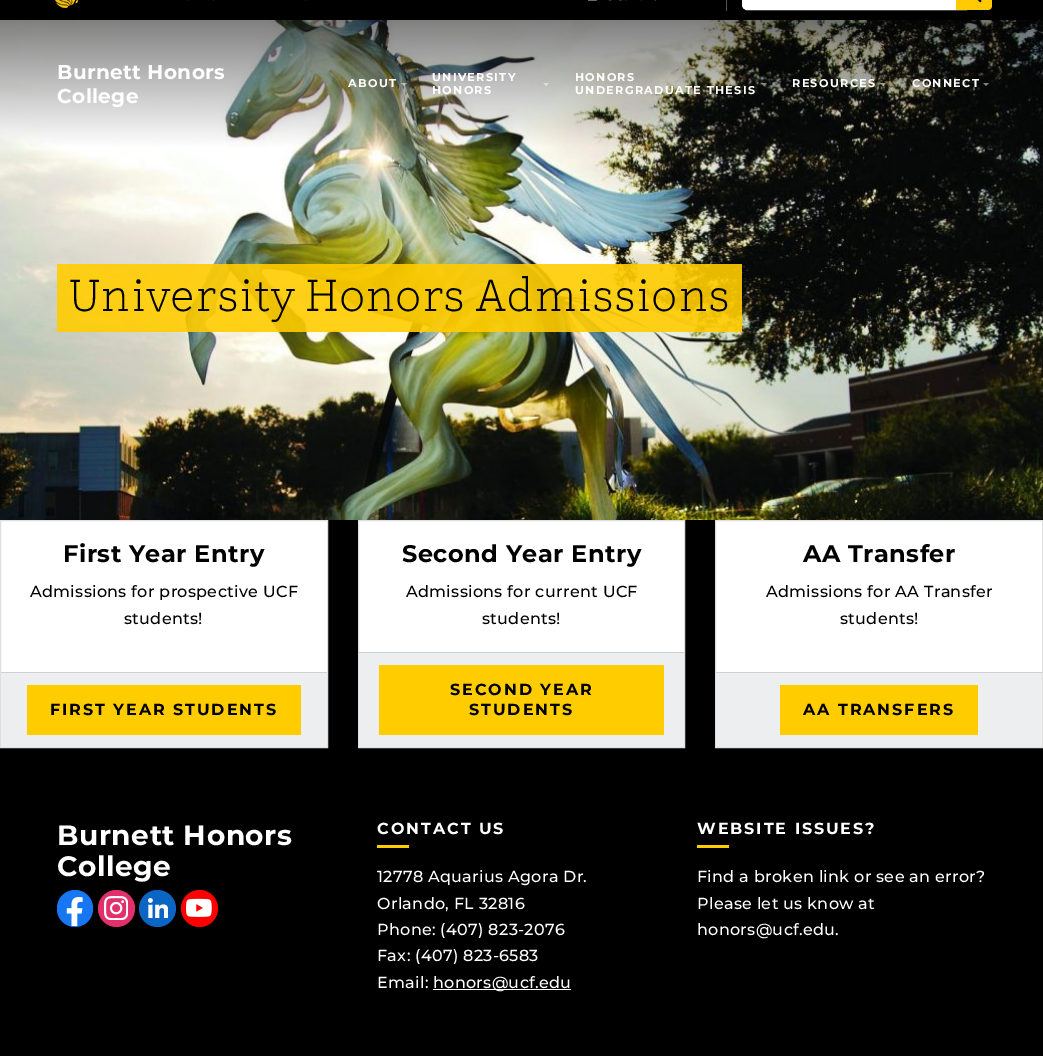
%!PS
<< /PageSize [1043 1056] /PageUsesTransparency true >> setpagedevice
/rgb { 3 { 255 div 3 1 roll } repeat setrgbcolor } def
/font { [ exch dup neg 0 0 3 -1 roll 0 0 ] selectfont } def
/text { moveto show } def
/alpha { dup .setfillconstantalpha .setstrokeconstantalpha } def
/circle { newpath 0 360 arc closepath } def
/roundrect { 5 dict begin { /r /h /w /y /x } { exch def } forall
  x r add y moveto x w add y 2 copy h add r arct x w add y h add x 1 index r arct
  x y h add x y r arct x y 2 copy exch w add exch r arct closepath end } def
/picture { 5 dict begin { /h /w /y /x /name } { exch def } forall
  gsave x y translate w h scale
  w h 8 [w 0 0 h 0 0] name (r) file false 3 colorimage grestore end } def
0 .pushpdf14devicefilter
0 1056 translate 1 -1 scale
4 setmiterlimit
0 0 0 rgb
0 0 1043 1056 rectfill
(img_01.rgb) 55 0 251 8 picture
(img_02.rgb) 588 0 68 1 picture
85 85 85 rgb
726 0 1 11 rectfill
255 255 255 rgb
747 -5.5 moveto 219.5 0 rlineto 0 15 rlineto -219.5 0 rlineto -2.5 0 -4.5 -2 -4.5 -4.5 rcurveto 0 -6 rlineto 0 -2.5 2 -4.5 4.5 -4.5 rcurveto closepath gsave fill grestore
stroke
255 201 4 rgb
956 -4 moveto 32 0 rlineto 2 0 4 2 4 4 rcurveto 0 6 rlineto 0 2 -2 4 -4 4 rcurveto -32 0 rlineto closepath fill
(img_03.rgb) 977 0 5 3 picture
(img_04.rgb) 0 20 1043 500 picture
0.5 alpha
255 255 255 rgb
401 83 moveto 6 0 rlineto -3 3 rlineto closepath fill
543 83 moveto 6 0 rlineto -3 3 rlineto closepath fill
761 83 moveto 6 0 rlineto -3 3 rlineto closepath fill
880 83 moveto 6 0 rlineto -3 3 rlineto closepath fill
1 alpha
131 131 132 rgb
983 83 moveto 6 0 rlineto -3 3 rlineto closepath fill
0.9 alpha
255 204 0 rgb
57 264 685 68 rectfill
1 alpha
255 255 255 rgb
1 521 326 151 rectfill
223 223 223 rgb
0.5 520.5 327 227 rectstroke
236 238 239 rgb
1 673 326 74 rectfill
207 208 209 rgb
1 672 326 1 rectfill
255 204 0 rgb
27 685 274 50 rectfill
255 255 255 rgb
359 521 325 131 rectfill
223 223 223 rgb
358.5 520.5 326 227 rectstroke
236 238 239 rgb
359 653 325 94 rectfill
207 208 209 rgb
359 652 325 1 rectfill
255 204 0 rgb
379 665 285 70 rectfill
255 255 255 rgb
716 521 326 151 rectfill
223 223 223 rgb
715.5 520.5 327 227 rectstroke
236 238 239 rgb
716 673 326 74 rectfill
207 208 209 rgb
716 672 326 1 rectfill
255 204 0 rgb
780 685 198 50 rectfill
23 119 242 rgb
57 890 36 37 18 roundrect fill
(img_05.rgb) 66 897 17 29 picture
225 48 108 rgb
116.5 908.5 18.5 circle fill
(img_06.rgb) 104 896 24 24 picture
10 102 194 rgb
157.5 908.5 18.5 circle fill
(img_07.rgb) 148 898 20 20 picture
255 0 0 rgb
199.5 908.5 18.5 circle fill
(img_08.rgb) 186 898 26 19 picture
255 204 0 rgb
377 845 32 3 rectfill
255 255 255 rgb
433 989 138 1 rectfill
255 204 0 rgb
697 845 32 3 rectfill
/Montserrat-Bold 20 font
255 255 255 rgb
(Burnett Honors) 57 79 text
(College) 57 103 text
/Montserrat-Bold 11.25 font
348 87 moveto 1.1 0 (ABOUT) ashow
432 81 moveto 1.1 0 (UNIVERSITY) ashow
432 94 moveto 1.1 0 (HONORS) ashow
575 81 moveto 1.1 0 (HONORS) ashow
575 94 moveto 1.1 0 (UNDERGRADUATE THESIS) ashow
792 87 moveto 1.1 0 (RESOURCES) ashow
912 87 moveto 1.1 0 (CONNECT) ashow
/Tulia-Regular 52 font
0 0 0 rgb
(University Honors Admissions) 69 311 text
/Montserrat-Bold 24 font
(First Year Entry) 63 562 text
/Montserrat-Medium 16 font
(Admissions for prospective UCF) 30 597 text
(students!) 124 624 text
/Montserrat-Bold 16 font
50 715 moveto 1.6 0 (FIRST YEAR STUDENTS) ashow
/Montserrat-Bold 24 font
(Second Year Entry) 402 562 text
/Montserrat-Medium 16 font
(Admissions for current UCF) 406 597 text
(students!) 482 624 text
/Montserrat-Bold 16 font
450 695 moveto 1.6 0 (SECOND YEAR) ashow
469 715 moveto 1.6 0 (STUDENTS) ashow
/Montserrat-Bold 24 font
(AA Transfer) 803 562 text
/Montserrat-Medium 16 font
(Admissions for AA Transfer) 766 597 text
(students!) 840 624 text
/Montserrat-Bold 16 font
803 715 moveto 1.6 0 (AA TRANSFERS) ashow
/Montserrat-Bold 28 font
255 255 255 rgb
(Burnett Honors) 57 845 text
(College) 57 876 text
/Montserrat-Bold 16 font
377 834 moveto 1.6 0 (CONTACT US) ashow
/Montserrat-Medium 16 font
(12778 Aquarius Agora Dr.) 377 882 text
(Orlando, FL 32816) 377 909 text
(Phone: \(407\) 823-2076) 377 935 text
(Fax: \(407\) 823-6583) 377 961 text
(Email:) 377 988 text
(honors@ucf.edu) 433 988 text
/Montserrat-Bold 16 font
697 834 moveto 1.6 0 (WEBSITE ISSUES?) ashow
/Montserrat-Medium 16 font
(Find a broken link or see an error?) 697 882 text
(Please let us know at) 697 909 text
(honors@ucf.edu.) 697 935 text
.poppdf14devicefilter showpage
